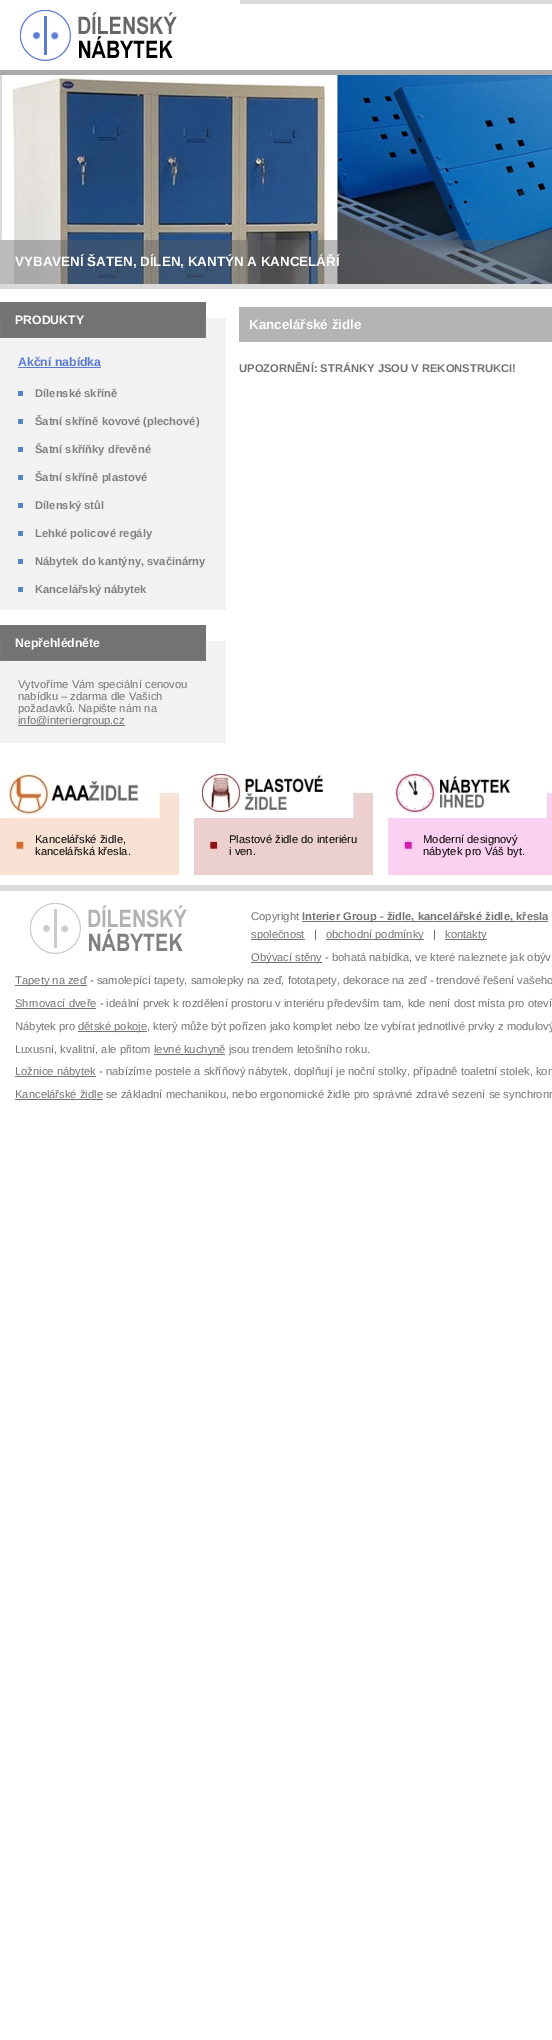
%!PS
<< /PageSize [552 2040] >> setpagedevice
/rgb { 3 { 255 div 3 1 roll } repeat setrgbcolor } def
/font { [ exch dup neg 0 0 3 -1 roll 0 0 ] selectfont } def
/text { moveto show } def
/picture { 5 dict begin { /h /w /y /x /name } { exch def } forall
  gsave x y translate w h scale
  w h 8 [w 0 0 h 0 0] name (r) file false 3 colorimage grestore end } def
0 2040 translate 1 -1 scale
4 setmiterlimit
255 255 255 rgb
0 0 552 2040 rectfill
218 218 218 rgb
240 0 312 4 rectfill
(img_01.rgb) 20 10 157 51 picture
(img_02.rgb) 0 75 552 209 picture
170 170 170 rgb
0 70 552 5 rectfill
218 218 218 rgb
0 284 552 5 rectfill
115 115 115 rgb
0 302 206 16 rectfill
(img_03.rgb) 0 318 226 20 picture
242 242 242 rgb
0 338 226 272 rectfill
91 122 210 rgb
18 367 83 1 rectfill
83 133 195 rgb
18 391 5 5 rectfill
18 419 5 5 rectfill
18 447 5 5 rectfill
18 475 5 5 rectfill
18 503 5 5 rectfill
18 531 5 5 rectfill
18 559 5 5 rectfill
18 587 5 5 rectfill
115 115 115 rgb
0 625 206 16 rectfill
(img_03.rgb) 0 641 226 20 picture
242 242 242 rgb
0 661 226 82 rectfill
115 115 115 rgb
18 725 107 1 rectfill
180 180 180 rgb
239 307 313 35 rectfill
249 226 212 rgb
0 818 179 57 rectfill
(img_04.rgb) 0 768 179 50 picture
(img_05.rgb) 15 840 10 10 picture
236 208 207 rgb
194 818 179 57 rectfill
(img_06.rgb) 194 768 179 50 picture
(img_07.rgb) 209 840 10 10 picture
252 208 241 rgb
388 818 164 57 rectfill
(img_08.rgb) 388 768 164 50 picture
(img_09.rgb) 403 840 10 10 picture
218 218 218 rgb
0 885 552 6 rectfill
(img_10.rgb) 30 903 157 51 picture
115 115 115 rgb
302 921 246 1 rectfill
251 939 54 1 rectfill
326 939 98 1 rectfill
445 939 42 1 rectfill
251 962 71 1 rectfill
15 985 72 1 rectfill
15 1008 81 1 rectfill
78 1031 69 1 rectfill
154 1054 71 1 rectfill
15 1076 81 1 rectfill
15 1099 88 1 rectfill
/LiberationSans-Bold 13.4 font
255 255 255 rgb
(VYBAVENÍ ŠATEN, DÍLEN, KANTÝN A KANCELÁŘÍ) 15 266 text
/LiberationSans-Bold 12.25 font
(PRODUKTY) 15 324 text
91 122 210 rgb
(Akční nabídka) 18 366 text
/LiberationSans-Bold 11.2 font
129 129 129 rgb
(Dílenské skříně) 35 397 text
(Šatní skříně kovové \(plechové\)) 35 425 text
(Šatní skříňky dřevěné) 35 453 text
(Šatní skříně plastové) 35 481 text
(Dílenský stůl) 35 509 text
(Lehké policové regály) 35 537 text
(Nábytek do kantýny, svačinárny) 35 565 text
(Kancelářský nábytek) 35 593 text
/LiberationSans-Bold 12.25 font
255 255 255 rgb
(Nepřehlédněte) 15 647 text
/LiberationSans-Regular 11.2 font
115 115 115 rgb
(Vytvoříme Vám speciální cenovou) 18 688 text
(nabídku – zdarma dle Vašich) 18 700 text
(požadavků. Napište nám na) 18 712 text
(info@interiergroup.cz) 18 724 text
/LiberationSans-Bold 13.4 font
255 255 255 rgb
(Kancelářské židle) 249 329 text
/LiberationSans-Bold 11.2 font
115 115 115 rgb
(UPOZORNĚNÍ: STRÁNKY JSOU V REKONSTRUKCI!) 239 372 text
/LiberationSans-Regular 11.2 font
0 0 0 rgb
(Kancelářské židle,) 35 843 text
(kancelářská křesla.) 35 855 text
(Plastové židle do interiéru) 229 843 text
(i ven.) 229 855 text
(Moderní designový) 423 843 text
(nábytek pro Váš byt.) 423 855 text
115 115 115 rgb
(Copyright) 251 920 text
/LiberationSans-Bold 11.2 font
(Interier Group - židle, kancelářské židle, křesla) 302 920 text
/LiberationSans-Regular 11.2 font
(společnost) 251 938 text
(|) 314 938 text
(obchodní podmínky) 326 938 text
(|) 433 938 text
(kontakty) 445 938 text
(Obývací stěny - bohatá nabídka, ve které naleznete jak obýv) 251 961 text
(Tapety na zeď - samolepící tapety, samolepky na zeď, fototapety, dekorace na zeď - trendové řešení vašeho) 15 984 text
(Shrnovací dveře - ideální prvek k rozdělení prostoru v interiéru především tam, kde není dost místa pro oteví) 15 1007 text
(Nábytek pro) 15 1030 text
(dětské pokoje, který může být pořízen jako komplet nebo lze vybírat jednotlivé prvky z modulový) 78 1030 text
(Luxusní, kvalitní, ale přitom) 15 1053 text
(levné kuchyně jsou trendem letošního roku.) 154 1053 text
(Ložnice nábytek - nabízíme postele a skříňový nábytek, doplňují je noční stolky, případně toaletní stolek, kom) 15 1075 text
(Kancelářské židle se základní mechanikou, nebo ergonomické židle pro správné zdravé sezení se synchronn) 15 1098 text
showpage
